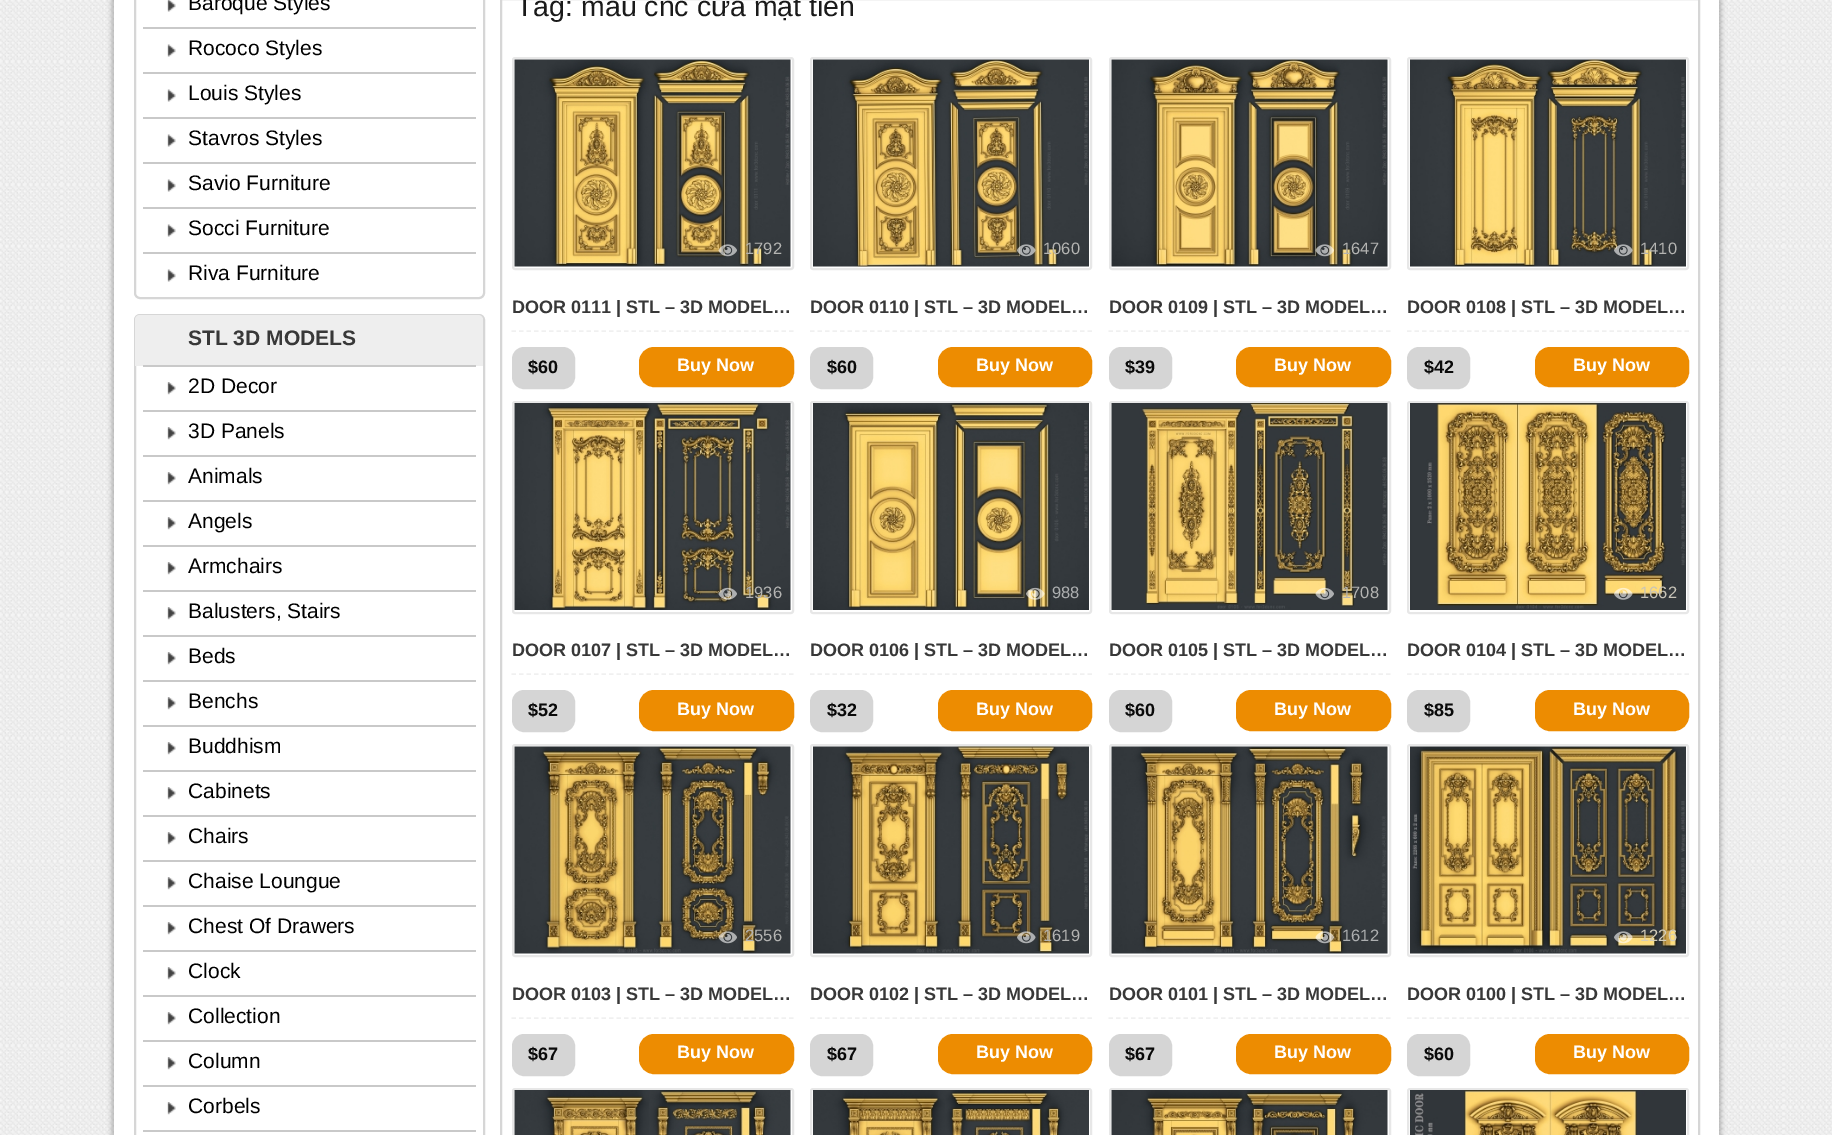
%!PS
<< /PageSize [1832 1135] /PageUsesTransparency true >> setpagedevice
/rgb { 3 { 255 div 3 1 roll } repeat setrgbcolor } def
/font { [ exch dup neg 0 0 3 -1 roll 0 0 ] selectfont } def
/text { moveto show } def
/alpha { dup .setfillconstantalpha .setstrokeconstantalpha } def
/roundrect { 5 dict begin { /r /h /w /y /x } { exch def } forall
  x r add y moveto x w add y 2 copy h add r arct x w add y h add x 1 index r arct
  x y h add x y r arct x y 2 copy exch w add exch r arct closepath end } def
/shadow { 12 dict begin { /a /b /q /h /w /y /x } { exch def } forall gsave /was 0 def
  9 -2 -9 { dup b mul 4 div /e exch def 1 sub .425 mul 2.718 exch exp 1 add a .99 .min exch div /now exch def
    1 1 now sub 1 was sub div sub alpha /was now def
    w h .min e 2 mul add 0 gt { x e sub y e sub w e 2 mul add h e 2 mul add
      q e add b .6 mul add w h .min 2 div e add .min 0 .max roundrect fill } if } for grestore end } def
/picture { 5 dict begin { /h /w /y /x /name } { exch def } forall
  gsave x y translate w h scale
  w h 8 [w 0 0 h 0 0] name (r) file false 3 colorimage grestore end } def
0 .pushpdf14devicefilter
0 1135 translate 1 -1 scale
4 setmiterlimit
255 255 255 rgb
0 0 1832 1135 rectfill
(img_01.rgb) 0 0 1832 1135 picture
0 0 0 rgb
111 -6 1611 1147 0 2 0.2 shadow
255 255 255 rgb
114 0 1605 1135 rectfill
214 214 214 rgb
2 setlinewidth
135 -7 349 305 5 roundrect stroke
(img_02.rgb) 167 0 9 12 picture
201 201 201 rgb
143 27 333 2 rectfill
(img_03.rgb) 167 44 9 13 picture
143 72 333 2 rectfill
(img_03.rgb) 167 89 9 13 picture
143 117 333 2 rectfill
(img_03.rgb) 167 134 9 13 picture
143 162 333 2 rectfill
(img_03.rgb) 167 179 9 13 picture
143 207 333 2 rectfill
(img_03.rgb) 167 224 9 13 picture
143 252 333 2 rectfill
(img_03.rgb) 167 269 9 13 picture
214 214 214 rgb
135 315 349 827 5 roundrect stroke
238 238 238 rgb
140 315 moveto 338 0 rlineto 3 0 5 2 5 5 rcurveto 0 46 rlineto -348 0 rlineto 0 -46 rlineto 0 -3 2 -5 5 -5 rcurveto closepath fill
201 201 201 rgb
143 365 333 2 rectfill
(img_04.rgb) 167 382 9 13 picture
143 410 333 2 rectfill
(img_04.rgb) 167 427 9 13 picture
143 455 333 2 rectfill
(img_04.rgb) 167 472 9 13 picture
143 500 333 2 rectfill
(img_04.rgb) 167 517 9 13 picture
143 545 333 2 rectfill
(img_04.rgb) 167 562 9 13 picture
143 590 333 2 rectfill
(img_04.rgb) 167 607 9 13 picture
143 635 333 2 rectfill
(img_04.rgb) 167 652 9 13 picture
143 680 333 2 rectfill
(img_04.rgb) 167 697 9 13 picture
143 725 333 2 rectfill
(img_04.rgb) 167 742 9 13 picture
143 770 333 2 rectfill
(img_04.rgb) 167 787 9 13 picture
143 815 333 2 rectfill
(img_04.rgb) 167 832 9 13 picture
143 860 333 2 rectfill
(img_04.rgb) 167 877 9 13 picture
143 905 333 2 rectfill
(img_04.rgb) 167 922 9 13 picture
143 950 333 2 rectfill
(img_04.rgb) 167 967 9 13 picture
143 995 333 2 rectfill
(img_04.rgb) 167 1012 9 13 picture
143 1040 333 2 rectfill
(img_04.rgb) 167 1057 9 13 picture
143 1085 333 2 rectfill
(img_04.rgb) 167 1102 9 13 picture
143 1130 333 2 rectfill
214 214 214 rgb
501 -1 1198 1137 rectstroke
231 231 231 rgb
513 58 280 211 2 roundrect stroke
(img_05.rgb) 514 59 277 208 picture
(img_06.rgb) 718 244 19 13 picture
240 240 240 rgb
1.5 setlinewidth
[4.5 3] 0 setdash
511.5 331 moveto 282 0 rlineto stroke
213 213 213 rgb
513 348 61 40 11 roundrect gsave fill grestore
2 setlinewidth
[] 0 setdash
stroke
237 140 1 rgb
640 348 153 38 14 roundrect gsave fill grestore
stroke
231 231 231 rgb
811 58 280 211 2 roundrect stroke
(img_07.rgb) 813 59 276 208 picture
(img_08.rgb) 1017 244 19 13 picture
240 240 240 rgb
1.5 setlinewidth
[4.5 3] 0 setdash
810 331 moveto 282 0 rlineto stroke
213 213 213 rgb
811 348 61 40 11 roundrect gsave fill grestore
2 setlinewidth
[] 0 setdash
stroke
237 140 1 rgb
939 348 152 38 14 roundrect gsave fill grestore
stroke
231 231 231 rgb
1110 58 280 211 2 roundrect stroke
(img_09.rgb) 1111 59 277 208 picture
(img_10.rgb) 1315 244 19 13 picture
240 240 240 rgb
1.5 setlinewidth
[4.5 3] 0 setdash
1108.5 331 moveto 282 0 rlineto stroke
213 213 213 rgb
1110 348 61 40 11 roundrect gsave fill grestore
2 setlinewidth
[] 0 setdash
stroke
237 140 1 rgb
1237 348 153 38 14 roundrect gsave fill grestore
stroke
231 231 231 rgb
1408 58 280 211 2 roundrect stroke
(img_11.rgb) 1410 59 276 208 picture
(img_12.rgb) 1614 244 19 13 picture
240 240 240 rgb
1.5 setlinewidth
[4.5 3] 0 setdash
1407 331 moveto 282 0 rlineto stroke
213 213 213 rgb
1408 348 61 40 11 roundrect gsave fill grestore
2 setlinewidth
[] 0 setdash
stroke
237 140 1 rgb
1536 348 152 38 14 roundrect gsave fill grestore
stroke
231 231 231 rgb
513 402 280 211 2 roundrect stroke
(img_13.rgb) 514 403 277 207 picture
(img_14.rgb) 718 587 19 13 picture
240 240 240 rgb
1.5 setlinewidth
[4.5 3] 0 setdash
511.5 674 moveto 282 0 rlineto stroke
213 213 213 rgb
513 691 61 40 11 roundrect gsave fill grestore
2 setlinewidth
[] 0 setdash
stroke
237 140 1 rgb
640 691 153 39 14 roundrect gsave fill grestore
stroke
231 231 231 rgb
811 402 280 211 2 roundrect stroke
(img_15.rgb) 813 403 276 207 picture
(img_16.rgb) 1026 587 19 13 picture
240 240 240 rgb
1.5 setlinewidth
[4.5 3] 0 setdash
810 674 moveto 282 0 rlineto stroke
213 213 213 rgb
811 691 61 40 11 roundrect gsave fill grestore
2 setlinewidth
[] 0 setdash
stroke
237 140 1 rgb
939 691 152 39 14 roundrect gsave fill grestore
stroke
231 231 231 rgb
1110 402 280 211 2 roundrect stroke
(img_17.rgb) 1111 403 277 207 picture
(img_18.rgb) 1315 587 19 13 picture
240 240 240 rgb
1.5 setlinewidth
[4.5 3] 0 setdash
1108.5 674 moveto 282 0 rlineto stroke
213 213 213 rgb
1110 691 61 40 11 roundrect gsave fill grestore
2 setlinewidth
[] 0 setdash
stroke
237 140 1 rgb
1237 691 153 39 14 roundrect gsave fill grestore
stroke
231 231 231 rgb
1408 402 280 211 2 roundrect stroke
(img_19.rgb) 1410 403 276 207 picture
(img_20.rgb) 1614 587 19 13 picture
240 240 240 rgb
1.5 setlinewidth
[4.5 3] 0 setdash
1407 674 moveto 282 0 rlineto stroke
213 213 213 rgb
1408 691 61 40 11 roundrect gsave fill grestore
2 setlinewidth
[] 0 setdash
stroke
237 140 1 rgb
1536 691 152 39 14 roundrect gsave fill grestore
stroke
231 231 231 rgb
513 745 280 211 2 roundrect stroke
(img_21.rgb) 514 746 277 208 picture
(img_22.rgb) 718 931 19 13 picture
240 240 240 rgb
1.5 setlinewidth
[4.5 3] 0 setdash
511.5 1018 moveto 282 0 rlineto stroke
213 213 213 rgb
513 1035 61 40 11 roundrect gsave fill grestore
2 setlinewidth
[] 0 setdash
stroke
237 140 1 rgb
640 1035 153 38 14 roundrect gsave fill grestore
stroke
231 231 231 rgb
811 745 280 211 2 roundrect stroke
(img_23.rgb) 813 746 276 208 picture
(img_24.rgb) 1017 931 19 13 picture
240 240 240 rgb
1.5 setlinewidth
[4.5 3] 0 setdash
810 1018 moveto 282 0 rlineto stroke
213 213 213 rgb
811 1035 61 40 11 roundrect gsave fill grestore
2 setlinewidth
[] 0 setdash
stroke
237 140 1 rgb
939 1035 152 38 14 roundrect gsave fill grestore
stroke
231 231 231 rgb
1110 745 280 211 2 roundrect stroke
(img_25.rgb) 1111 746 277 208 picture
(img_26.rgb) 1315 931 19 13 picture
240 240 240 rgb
1.5 setlinewidth
[4.5 3] 0 setdash
1108.5 1018 moveto 282 0 rlineto stroke
213 213 213 rgb
1110 1035 61 40 11 roundrect gsave fill grestore
2 setlinewidth
[] 0 setdash
stroke
237 140 1 rgb
1237 1035 153 38 14 roundrect gsave fill grestore
stroke
231 231 231 rgb
1408 745 280 211 2 roundrect stroke
(img_27.rgb) 1410 746 276 208 picture
(img_28.rgb) 1614 931 19 13 picture
240 240 240 rgb
1.5 setlinewidth
[4.5 3] 0 setdash
1407 1018 moveto 282 0 rlineto stroke
213 213 213 rgb
1408 1035 61 40 11 roundrect gsave fill grestore
2 setlinewidth
[] 0 setdash
stroke
237 140 1 rgb
1536 1035 152 38 14 roundrect gsave fill grestore
stroke
231 231 231 rgb
513 1089 280 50 2 roundrect stroke
(img_29.rgb) 514 1090 277 45 picture
811 1089 280 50 2 roundrect stroke
(img_30.rgb) 813 1090 276 45 picture
1110 1089 280 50 2 roundrect stroke
(img_31.rgb) 1111 1090 277 45 picture
1408 1089 280 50 2 roundrect stroke
(img_32.rgb) 1410 1090 276 45 picture
/LiberationSans-Regular 21 font
0 0 0 rgb
(Baroque Styles) 188 10 text
(Rococo Styles) 188 55 text
(Louis Styles) 188 100 text
(Stavros Styles) 188 145 text
(Savio Furniture) 188 190 text
(Socci Furniture) 188 235 text
(Riva Furniture) 188 280 text
/LiberationSans-Bold 21 font
56 56 56 rgb
(STL 3D MODELS) 188 345 text
/LiberationSans-Regular 21 font
0 0 0 rgb
(2D Decor) 188 393 text
(3D Panels) 188 438 text
(Animals) 188 483 text
(Angels) 188 528 text
(Armchairs) 188 573 text
(Balusters, Stairs) 188 618 text
(Beds) 188 663 text
(Benchs) 188 708 text
(Buddhism) 188 753 text
(Cabinets) 188 798 text
(Chairs) 188 843 text
(Chaise Loungue) 188 888 text
(Chest Of Drawers) 188 933 text
(Clock) 188 978 text
(Collection) 188 1023 text
(Column) 188 1068 text
(Corbels) 188 1113 text
/LiberationSans-Regular 28.5 font
26 26 26 rgb
(Tag: mẫu cnc cửa mặt tiền) 516 16 text
/LiberationSans-Regular 16.5 font
180 180 178 rgb
(1792) 745 254 text
/LiberationSans-Bold 18 font
56 56 56 rgb
(DOOR 0111 | STL – 3D MODEL…) 512 313 text
10 10 10 rgb
($60) 528 373 text
255 255 255 rgb
(Buy Now) 677 371 text
/LiberationSans-Regular 16.5 font
180 180 178 rgb
(1060) 1043 254 text
/LiberationSans-Bold 18 font
56 56 56 rgb
(DOOR 0110 | STL – 3D MODEL…) 810 313 text
10 10 10 rgb
($60) 827 373 text
255 255 255 rgb
(Buy Now) 976 371 text
/LiberationSans-Regular 16.5 font
180 180 178 rgb
(1647) 1342 254 text
/LiberationSans-Bold 18 font
56 56 56 rgb
(DOOR 0109 | STL – 3D MODEL…) 1109 313 text
10 10 10 rgb
($39) 1125 373 text
255 255 255 rgb
(Buy Now) 1274 371 text
/LiberationSans-Regular 16.5 font
180 180 178 rgb
(1410) 1640 254 text
/LiberationSans-Bold 18 font
56 56 56 rgb
(DOOR 0108 | STL – 3D MODEL…) 1407 313 text
10 10 10 rgb
($42) 1424 373 text
255 255 255 rgb
(Buy Now) 1573 371 text
/LiberationSans-Regular 16.5 font
180 180 178 rgb
(1936) 745 598 text
/LiberationSans-Bold 18 font
56 56 56 rgb
(DOOR 0107 | STL – 3D MODEL…) 512 656 text
10 10 10 rgb
($52) 528 716 text
255 255 255 rgb
(Buy Now) 677 715 text
/LiberationSans-Regular 16.5 font
173 175 176 rgb
(988) 1052 598 text
/LiberationSans-Bold 18 font
56 56 56 rgb
(DOOR 0106 | STL – 3D MODEL…) 810 656 text
10 10 10 rgb
($32) 827 716 text
255 255 255 rgb
(Buy Now) 976 715 text
/LiberationSans-Regular 16.5 font
180 180 178 rgb
(1708) 1342 598 text
/LiberationSans-Bold 18 font
56 56 56 rgb
(DOOR 0105 | STL – 3D MODEL…) 1109 656 text
10 10 10 rgb
($60) 1125 716 text
255 255 255 rgb
(Buy Now) 1274 715 text
/LiberationSans-Regular 16.5 font
200 196 184 rgb
(1662) 1640 598 text
/LiberationSans-Bold 18 font
56 56 56 rgb
(DOOR 0104 | STL – 3D MODEL…) 1407 656 text
10 10 10 rgb
($85) 1424 716 text
255 255 255 rgb
(Buy Now) 1573 715 text
/LiberationSans-Regular 16.5 font
180 180 178 rgb
(2556) 745 941 text
/LiberationSans-Bold 18 font
56 56 56 rgb
(DOOR 0103 | STL – 3D MODEL…) 512 1000 text
10 10 10 rgb
($67) 528 1060 text
255 255 255 rgb
(Buy Now) 677 1058 text
/LiberationSans-Regular 16.5 font
180 180 178 rgb
(1619) 1043 941 text
/LiberationSans-Bold 18 font
56 56 56 rgb
(DOOR 0102 | STL – 3D MODEL…) 810 1000 text
10 10 10 rgb
($67) 827 1060 text
255 255 255 rgb
(Buy Now) 976 1058 text
/LiberationSans-Regular 16.5 font
173 175 176 rgb
(1612) 1342 941 text
/LiberationSans-Bold 18 font
56 56 56 rgb
(DOOR 0101 | STL – 3D MODEL…) 1109 1000 text
10 10 10 rgb
($67) 1125 1060 text
255 255 255 rgb
(Buy Now) 1274 1058 text
/LiberationSans-Regular 16.5 font
212 205 185 rgb
(1226) 1640 941 text
/LiberationSans-Bold 18 font
56 56 56 rgb
(DOOR 0100 | STL – 3D MODEL…) 1407 1000 text
10 10 10 rgb
($60) 1424 1060 text
255 255 255 rgb
(Buy Now) 1573 1058 text
.poppdf14devicefilter showpage
